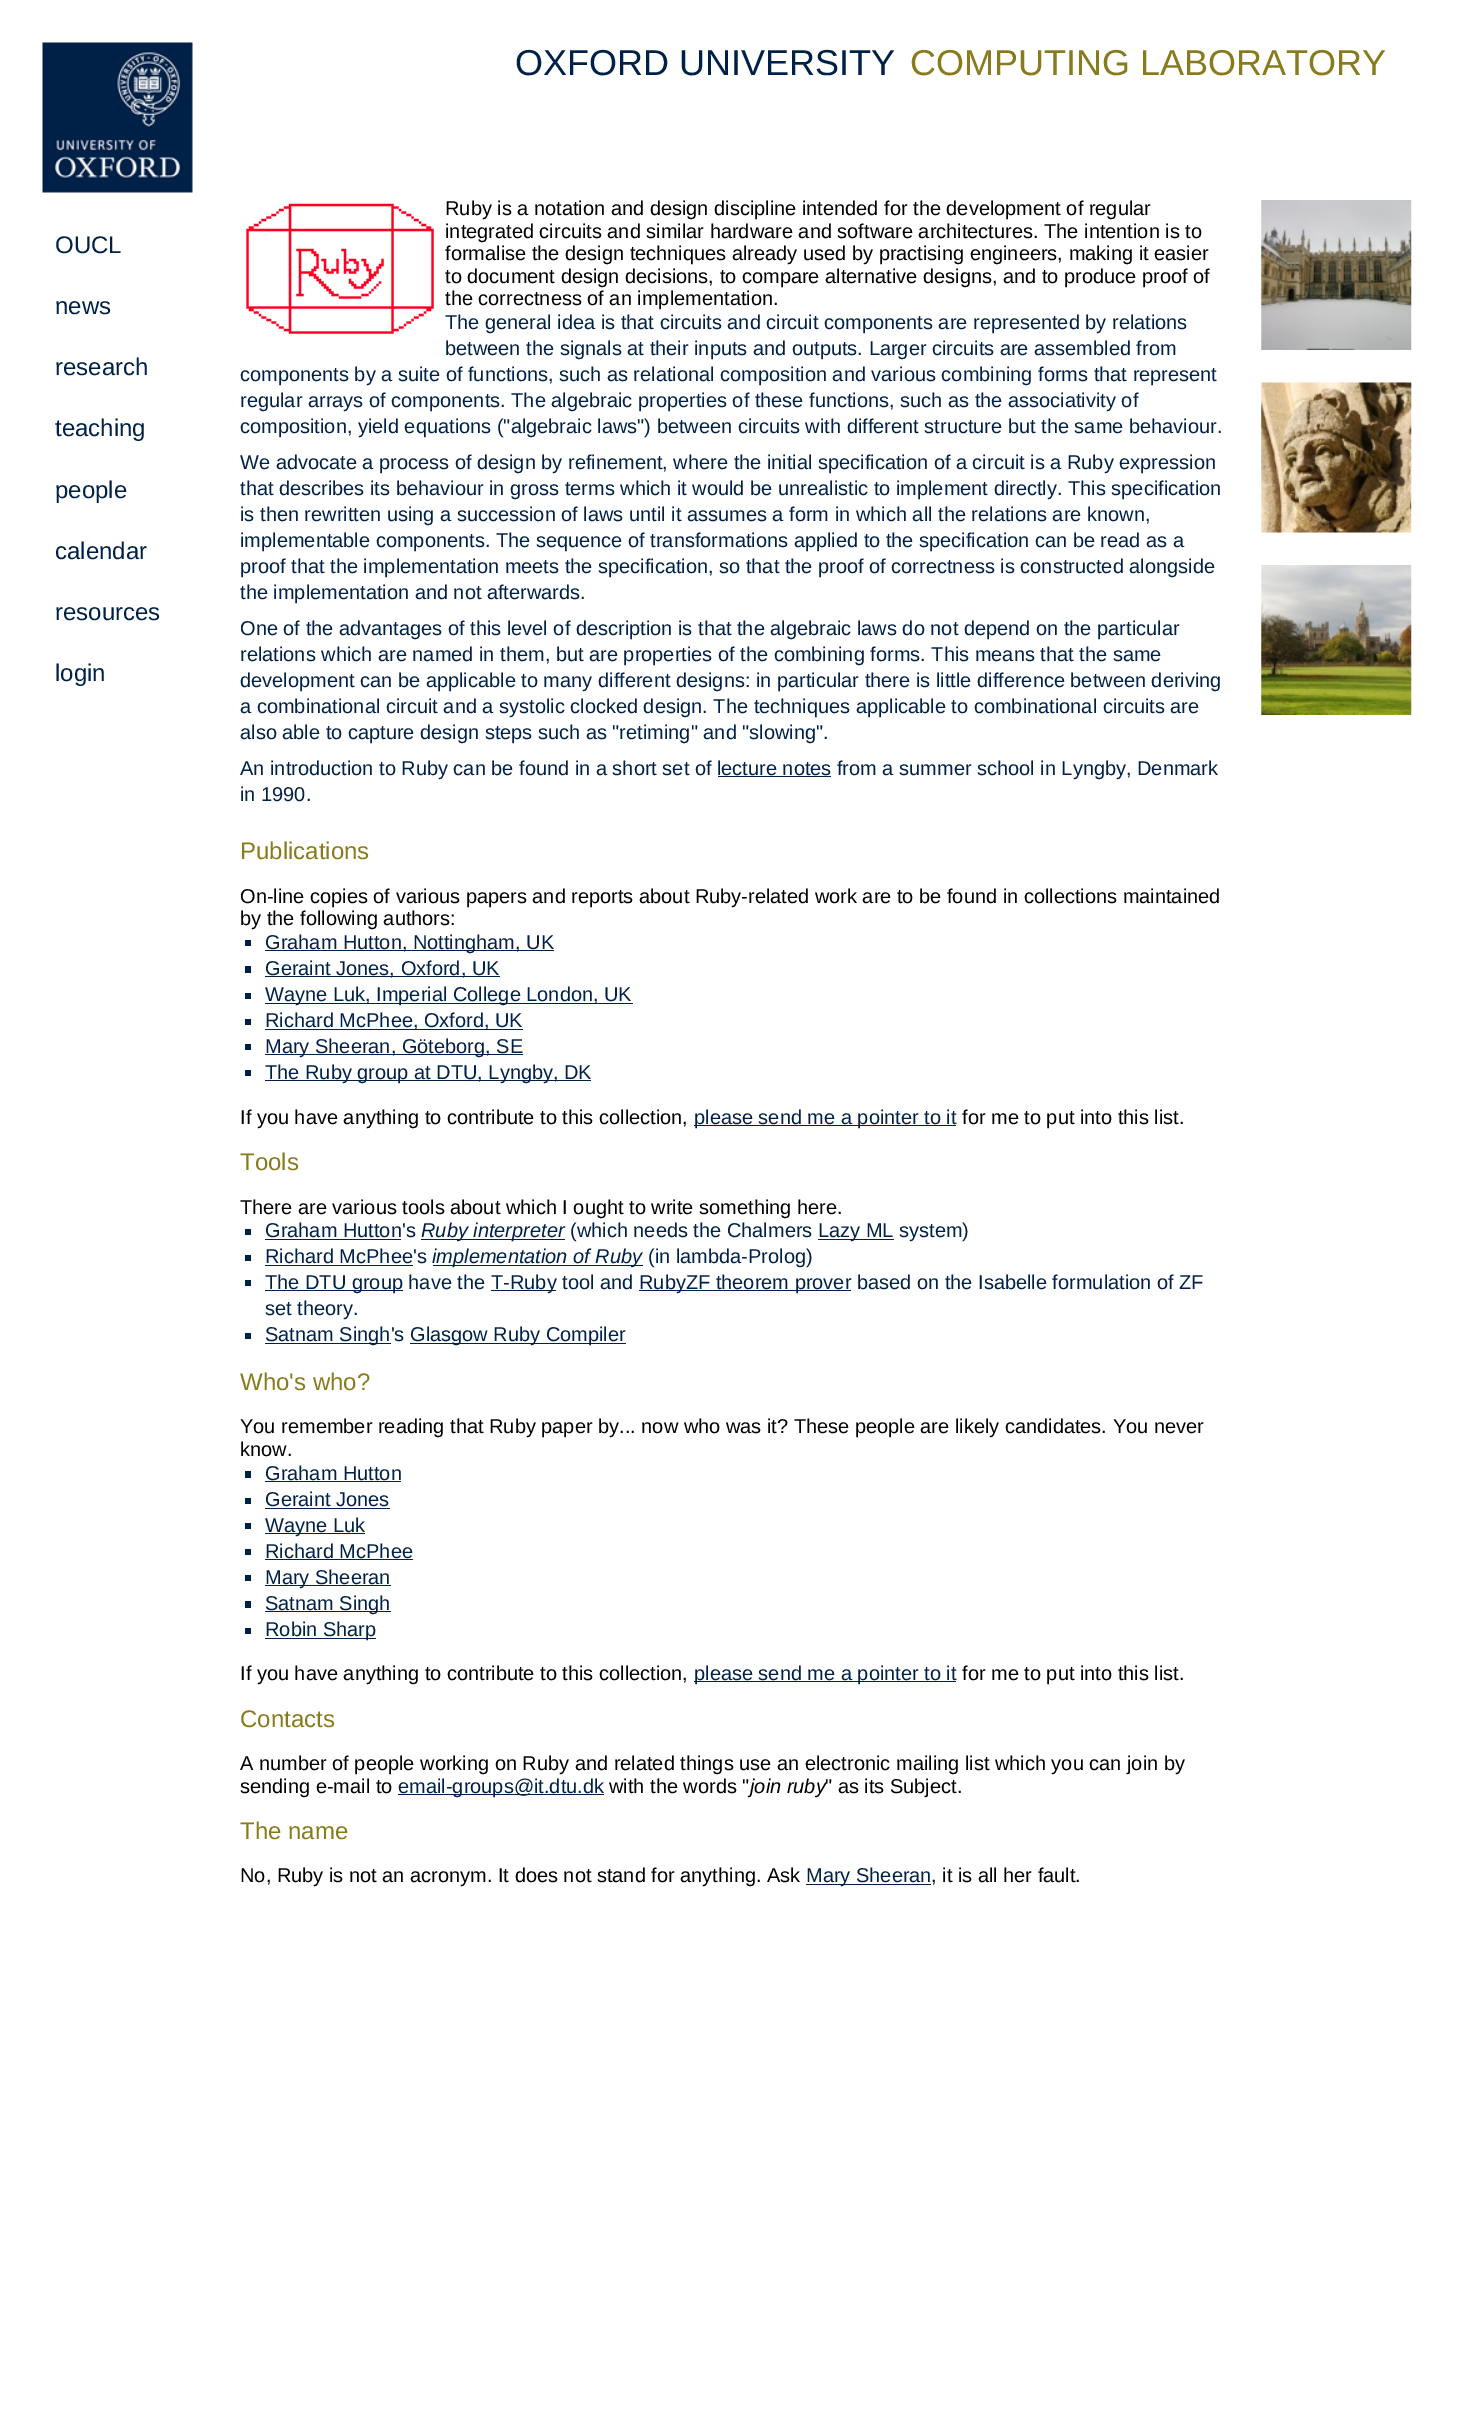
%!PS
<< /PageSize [1458 2431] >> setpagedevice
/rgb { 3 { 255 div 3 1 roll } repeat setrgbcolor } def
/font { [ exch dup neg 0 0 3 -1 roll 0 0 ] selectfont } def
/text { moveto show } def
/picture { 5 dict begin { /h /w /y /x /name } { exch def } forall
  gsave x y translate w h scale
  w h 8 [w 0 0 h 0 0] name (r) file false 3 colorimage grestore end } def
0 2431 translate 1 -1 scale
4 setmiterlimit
255 255 255 rgb
0 0 1458 2431 rectfill
(img_01.rgb) 42 42 151 151 picture
(img_02.rgb) 246 203 188 131 picture
0 33 71 rgb
718 776 113 1 rectfill
245 940 6 6 rectfill
265 950 289 1 rectfill
245 966 6 7 rectfill
265 976 235 1 rectfill
245 993 6 6 rectfill
265 1003 368 1 rectfill
245 1019 6 6 rectfill
265 1029 258 1 rectfill
245 1044 6 6 rectfill
265 1054 258 1 rectfill
245 1070 6 6 rectfill
265 1080 326 1 rectfill
694 1125 262 1 rectfill
245 1229 6 6 rectfill
265 1239 136 1 rectfill
421 1239 144 1 rectfill
818 1239 76 1 rectfill
245 1255 6 6 rectfill
265 1265 148 1 rectfill
433 1265 210 1 rectfill
245 1280 6 6 rectfill
265 1290 138 1 rectfill
491 1290 65 1 rectfill
639 1290 212 1 rectfill
245 1333 6 6 rectfill
265 1343 126 1 rectfill
410 1343 216 1 rectfill
245 1471 6 7 rectfill
265 1481 136 1 rectfill
245 1498 6 6 rectfill
265 1508 125 1 rectfill
245 1523 6 6 rectfill
265 1533 100 1 rectfill
245 1549 6 6 rectfill
265 1559 148 1 rectfill
245 1575 6 6 rectfill
265 1585 126 1 rectfill
245 1601 6 7 rectfill
265 1611 126 1 rectfill
245 1628 6 6 rectfill
265 1638 111 1 rectfill
694 1681 262 1 rectfill
398 1794 206 1 rectfill
806 1884 125 1 rectfill
(img_03.rgb) 1261 200 151 150 picture
(img_04.rgb) 1261 382 151 151 picture
(img_05.rgb) 1261 565 151 150 picture
/LiberationSans-Regular 24 font
(OUCL) 55 253 text
(news) 55 314 text
(research) 55 375 text
(teaching) 55 436 text
(people) 55 498 text
(calendar) 55 559 text
(resources) 55 620 text
(login) 55 681 text
/LiberationSans-Regular 36 font
(OXFORD UNIVERSITY) 515 75 text
136 123 27 rgb
(COMPUTING LABORATORY) 910 75 text
/LiberationSans-Regular 20 font
0 0 0 rgb
(Ruby is a notation and design discipline intended for the development of regular) 445 215 text
(integrated circuits and similar hardware and software architectures. The intention is to) 445 238 text
(formalise the design techniques already used by practising engineers, making it easier) 445 260 text
(to document design decisions, to compare alternative designs, and to produce proof of) 445 283 text
(the correctness of an implementation.) 445 305 text
0 33 71 rgb
(The general idea is that circuits and circuit components are represented by relations) 445 329 text
(between the signals at their inputs and outputs. Larger circuits are assembled from) 445 355 text
(components by a suite of functions, such as relational composition and various combining forms that represent) 240 381 text
(regular arrays of components. The algebraic properties of these functions, such as the associativity of) 240 407 text
(composition, yield equations \("algebraic laws"\) between circuits with different structure but the same behaviour.) 240 433 text
(We advocate a process of design by refinement, where the initial specification of a circuit is a Ruby expression) 240 469 text
(that describes its behaviour in gross terms which it would be unrealistic to implement directly. This specification) 240 495 text
(is then rewritten using a succession of laws until it assumes a form in which all the relations are known,) 240 521 text
(implementable components. The sequence of transformations applied to the specification can be read as a) 240 547 text
(proof that the implementation meets the specification, so that the proof of correctness is constructed alongside) 240 573 text
(the implementation and not afterwards.) 240 599 text
(One of the advantages of this level of description is that the algebraic laws do not depend on the particular) 240 635 text
(relations which are named in them, but are properties of the combining forms. This means that the same) 240 661 text
(development can be applicable to many different designs: in particular there is little difference between deriving) 240 687 text
(a combinational circuit and a systolic clocked design. The techniques applicable to combinational circuits are) 240 713 text
(also able to capture design steps such as "retiming" and "slowing".) 240 739 text
(An introduction to Ruby can be found in a short set of lecture notes from a summer school in Lyngby, Denmark) 240 775 text
(in 1990.) 240 801 text
/LiberationSans-Regular 24 font
136 123 27 rgb
(Publications) 240 859 text
/LiberationSans-Regular 20 font
0 0 0 rgb
(On-line copies of various papers and reports about Ruby-related work are to be found in collections maintained) 240 903 text
(by the following authors:) 240 925 text
0 33 71 rgb
(Graham Hutton, Nottingham, UK) 265 949 text
(Geraint Jones, Oxford, UK) 265 975 text
(Wayne Luk, Imperial College London, UK) 265 1001 text
(Richard McPhee, Oxford, UK) 265 1027 text
(Mary Sheeran, Göteborg, SE) 265 1053 text
(The Ruby group at DTU, Lyngby, DK) 265 1079 text
0 0 0 rgb
(If you have anything to contribute to this collection,) 240 1124 text
0 33 71 rgb
(please send me a pointer to it) 694 1124 text
0 0 0 rgb
(for me to put into this list.) 962 1124 text
/LiberationSans-Regular 24 font
136 123 27 rgb
(Tools) 240 1170 text
/LiberationSans-Regular 20 font
0 0 0 rgb
(There are various tools about which I ought to write something here.) 240 1214 text
0 33 71 rgb
(Graham Hutton's) 265 1237 text
/LiberationSans-Italic 20 font
(Ruby interpreter) 421 1237 text
/LiberationSans-Regular 20 font
(\(which needs the Chalmers) 570 1237 text
(Lazy ML system\)) 818 1237 text
(Richard McPhee's) 265 1263 text
/LiberationSans-Italic 20 font
(implementation of Ruby) 432 1263 text
/LiberationSans-Regular 20 font
(\(in lambda-Prolog\)) 648 1263 text
(The DTU group have the) 265 1289 text
(T-Ruby tool and) 491 1289 text
(RubyZF theorem prover based on the Isabelle formulation of ZF) 639 1289 text
(set theory.) 265 1315 text
(Satnam Singh's) 265 1341 text
(Glasgow Ruby Compiler) 410 1341 text
/LiberationSans-Regular 24 font
136 123 27 rgb
(Who's who?) 240 1390 text
/LiberationSans-Regular 20 font
0 0 0 rgb
(You remember reading that Ruby paper by... now who was it? These people are likely candidates. You never) 240 1433 text
(know.) 240 1456 text
0 33 71 rgb
(Graham Hutton) 265 1480 text
(Geraint Jones) 265 1506 text
(Wayne Luk) 265 1532 text
(Richard McPhee) 265 1558 text
(Mary Sheeran) 265 1584 text
(Satnam Singh) 265 1610 text
(Robin Sharp) 265 1636 text
0 0 0 rgb
(If you have anything to contribute to this collection,) 240 1680 text
0 33 71 rgb
(please send me a pointer to it) 694 1680 text
0 0 0 rgb
(for me to put into this list.) 962 1680 text
/LiberationSans-Regular 24 font
136 123 27 rgb
(Contacts) 240 1727 text
/LiberationSans-Regular 20 font
0 0 0 rgb
(A number of people working on Ruby and related things use an electronic mailing list which you can join by) 240 1770 text
(sending e-mail to) 240 1793 text
0 33 71 rgb
(email-groups@it.dtu.dk) 398 1793 text
0 0 0 rgb
(with the words ") 609 1793 text
/LiberationSans-Italic 20 font
(join ruby) 750 1793 text
/LiberationSans-Regular 20 font
(" as its Subject.) 825 1793 text
/LiberationSans-Regular 24 font
136 123 27 rgb
(The name) 240 1839 text
/LiberationSans-Regular 20 font
0 0 0 rgb
(No, Ruby is not an acronym. It does not stand for anything. Ask) 240 1882 text
0 33 71 rgb
(Mary Sheeran) 806 1882 text
0 0 0 rgb
(, it is all her fault.) 931 1882 text
showpage
